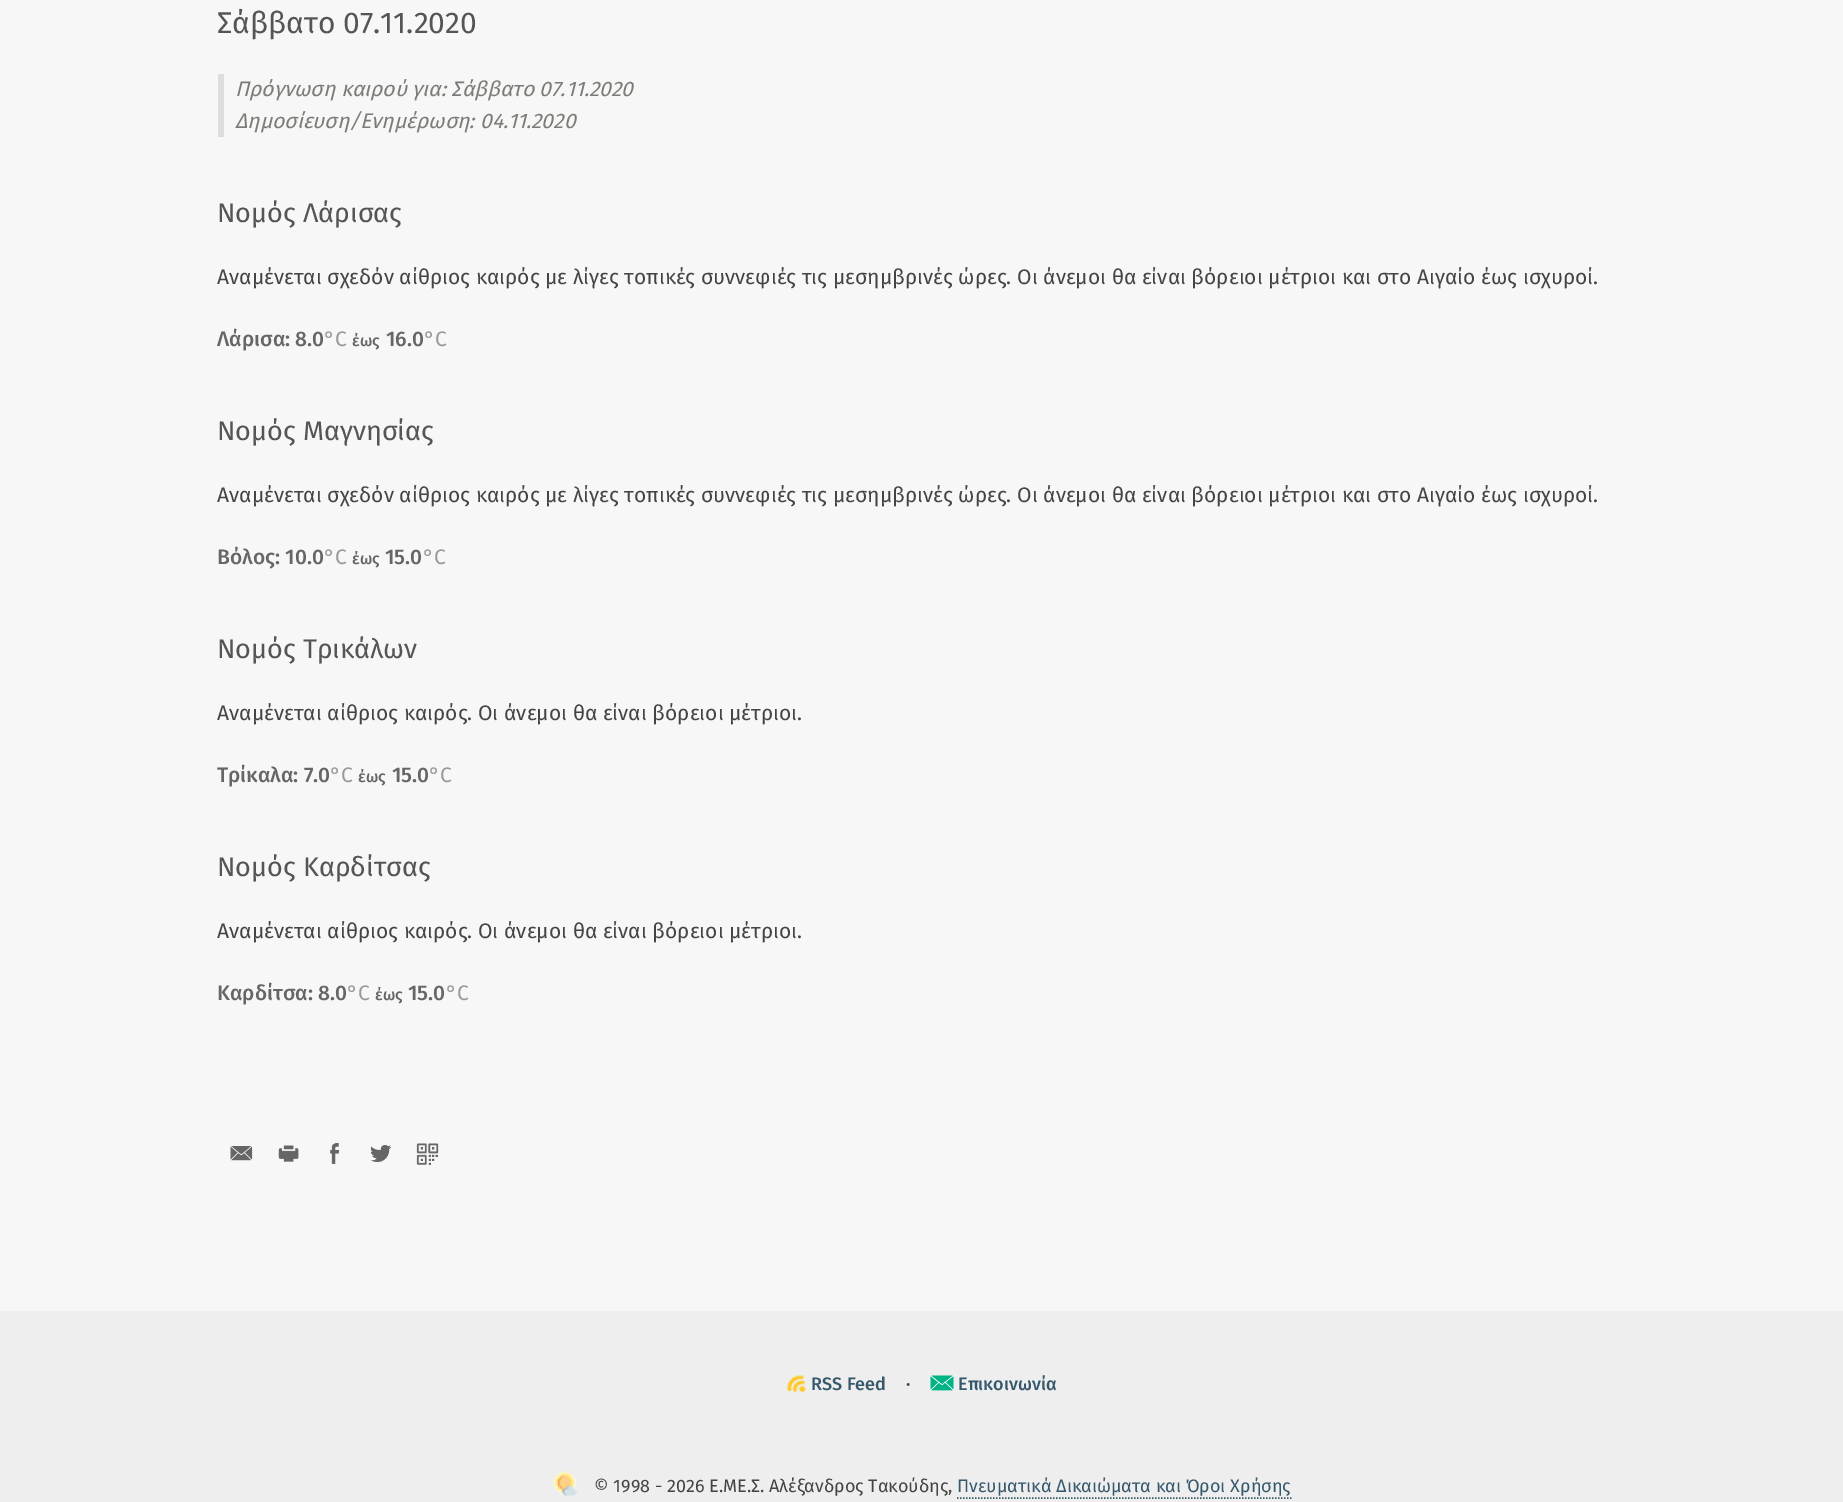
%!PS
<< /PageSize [1843 1502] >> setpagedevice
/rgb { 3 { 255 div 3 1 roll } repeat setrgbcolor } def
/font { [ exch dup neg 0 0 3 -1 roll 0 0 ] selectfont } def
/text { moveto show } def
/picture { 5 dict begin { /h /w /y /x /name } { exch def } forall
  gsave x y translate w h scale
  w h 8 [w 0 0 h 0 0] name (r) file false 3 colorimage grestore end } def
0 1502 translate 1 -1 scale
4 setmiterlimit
247 247 247 rgb
0 0 1843 1502 rectfill
221 221 221 rgb
218 74 6 63 rectfill
(img_01.rgb) 230 1146 23 15 picture
(img_02.rgb) 278 1145 21 17 picture
(img_03.rgb) 330 1143 10 21 picture
(img_04.rgb) 370 1145 22 17 picture
(img_05.rgb) 416 1143 23 22 picture
238 238 238 rgb
0 1311 1843 191 rectfill
(img_06.rgb) 787 1375 19 17 picture
(img_07.rgb) 930 1375 24 16 picture
(img_08.rgb) 553 1471 25 25 picture
54 88 108 rgb
1.5 setlinewidth
[1.5 1.5] 0 setdash
957 1498 moveto 334.5 0 rlineto stroke
/FiraSans-Regular 30 font
85 85 85 rgb
(Σάββατο 07.11.2020) 217 33 text
/FiraSans-Italic 21 font
124 124 119 rgb
(Πρόγνωση καιρού για: Σάββατο 07.11.2020) 235 96 text
(Δημοσίευση/Ενημέρωση: 04.11.2020) 235 128 text
/FiraSans-Regular 27 font
85 85 85 rgb
(Νομός Λάρισας) 217 222 text
/FiraSans-Regular 21 font
68 68 68 rgb
(Αναμένεται σχεδόν αίθριος καιρός με λίγες τοπικές συννεφιές τις μεσημβρινές ώρες. Οι άνεμοι θα είναι βόρειοι μέτριοι και στο Αιγαίο έως ισχυροί.) 217 284 text
/FiraSans-Medium 21 font
102 102 102 rgb
(Λάρισα: 8.0) 217 346 text
/FiraSans-Regular 21 font
153 153 153 rgb
(°C) 324 346 text
/FiraSans-Medium 16 font
102 102 102 rgb
(έως) 352 346 text
/FiraSans-Medium 21 font
(16.0) 386 346 text
/FiraSans-Regular 21 font
153 153 153 rgb
(°C) 424 346 text
/FiraSans-Regular 27 font
85 85 85 rgb
(Νομός Μαγνησίας) 217 440 text
/FiraSans-Regular 21 font
68 68 68 rgb
(Αναμένεται σχεδόν αίθριος καιρός με λίγες τοπικές συννεφιές τις μεσημβρινές ώρες. Οι άνεμοι θα είναι βόρειοι μέτριοι και στο Αιγαίο έως ισχυροί.) 217 502 text
/FiraSans-Medium 21 font
102 102 102 rgb
(Βόλος: 10.0) 217 564 text
/FiraSans-Regular 21 font
153 153 153 rgb
(°C) 324 564 text
/FiraSans-Medium 16 font
102 102 102 rgb
(έως) 352 564 text
/FiraSans-Medium 21 font
(15.0) 385 564 text
/FiraSans-Regular 21 font
153 153 153 rgb
(°C) 423 564 text
/FiraSans-Regular 27 font
85 85 85 rgb
(Νομός Τρικάλων) 217 658 text
/FiraSans-Regular 21 font
68 68 68 rgb
(Αναμένεται αίθριος καιρός. Οι άνεμοι θα είναι βόρειοι μέτριοι.) 217 720 text
/FiraSans-Medium 21 font
102 102 102 rgb
(Τρίκαλα: 7.0) 217 782 text
/FiraSans-Regular 21 font
153 153 153 rgb
(°C) 330 782 text
/FiraSans-Medium 16 font
102 102 102 rgb
(έως) 358 782 text
/FiraSans-Medium 21 font
(15.0) 392 782 text
/FiraSans-Regular 21 font
153 153 153 rgb
(°C) 429 782 text
/FiraSans-Regular 27 font
85 85 85 rgb
(Νομός Καρδίτσας) 217 876 text
/FiraSans-Regular 21 font
68 68 68 rgb
(Αναμένεται αίθριος καιρός. Οι άνεμοι θα είναι βόρειοι μέτριοι.) 217 938 text
/FiraSans-Medium 21 font
102 102 102 rgb
(Καρδίτσα: 8.0) 217 1000 text
/FiraSans-Regular 21 font
153 153 153 rgb
(°C) 347 1000 text
/FiraSans-Medium 16 font
102 102 102 rgb
(έως) 375 1000 text
/FiraSans-Medium 21 font
(15.0) 408 1000 text
/FiraSans-Regular 21 font
153 153 153 rgb
(°C) 446 1000 text
/FiraSans-Medium 18 font
54 88 108 rgb
(RSS Feed) 811 1390 text
68 68 68 rgb
(·) 906 1390 text
54 88 108 rgb
(Επικοινωνία) 958 1390 text
/FiraSans-Regular 18 font
68 68 68 rgb
(© 1998 - 2026 Ε.ΜΕ.Σ. Αλέξανδρος Τακούδης,) 594 1492 text
54 88 108 rgb
(Πνευματικά Δικαιώματα και Όροι Χρήσης) 957 1492 text
showpage
